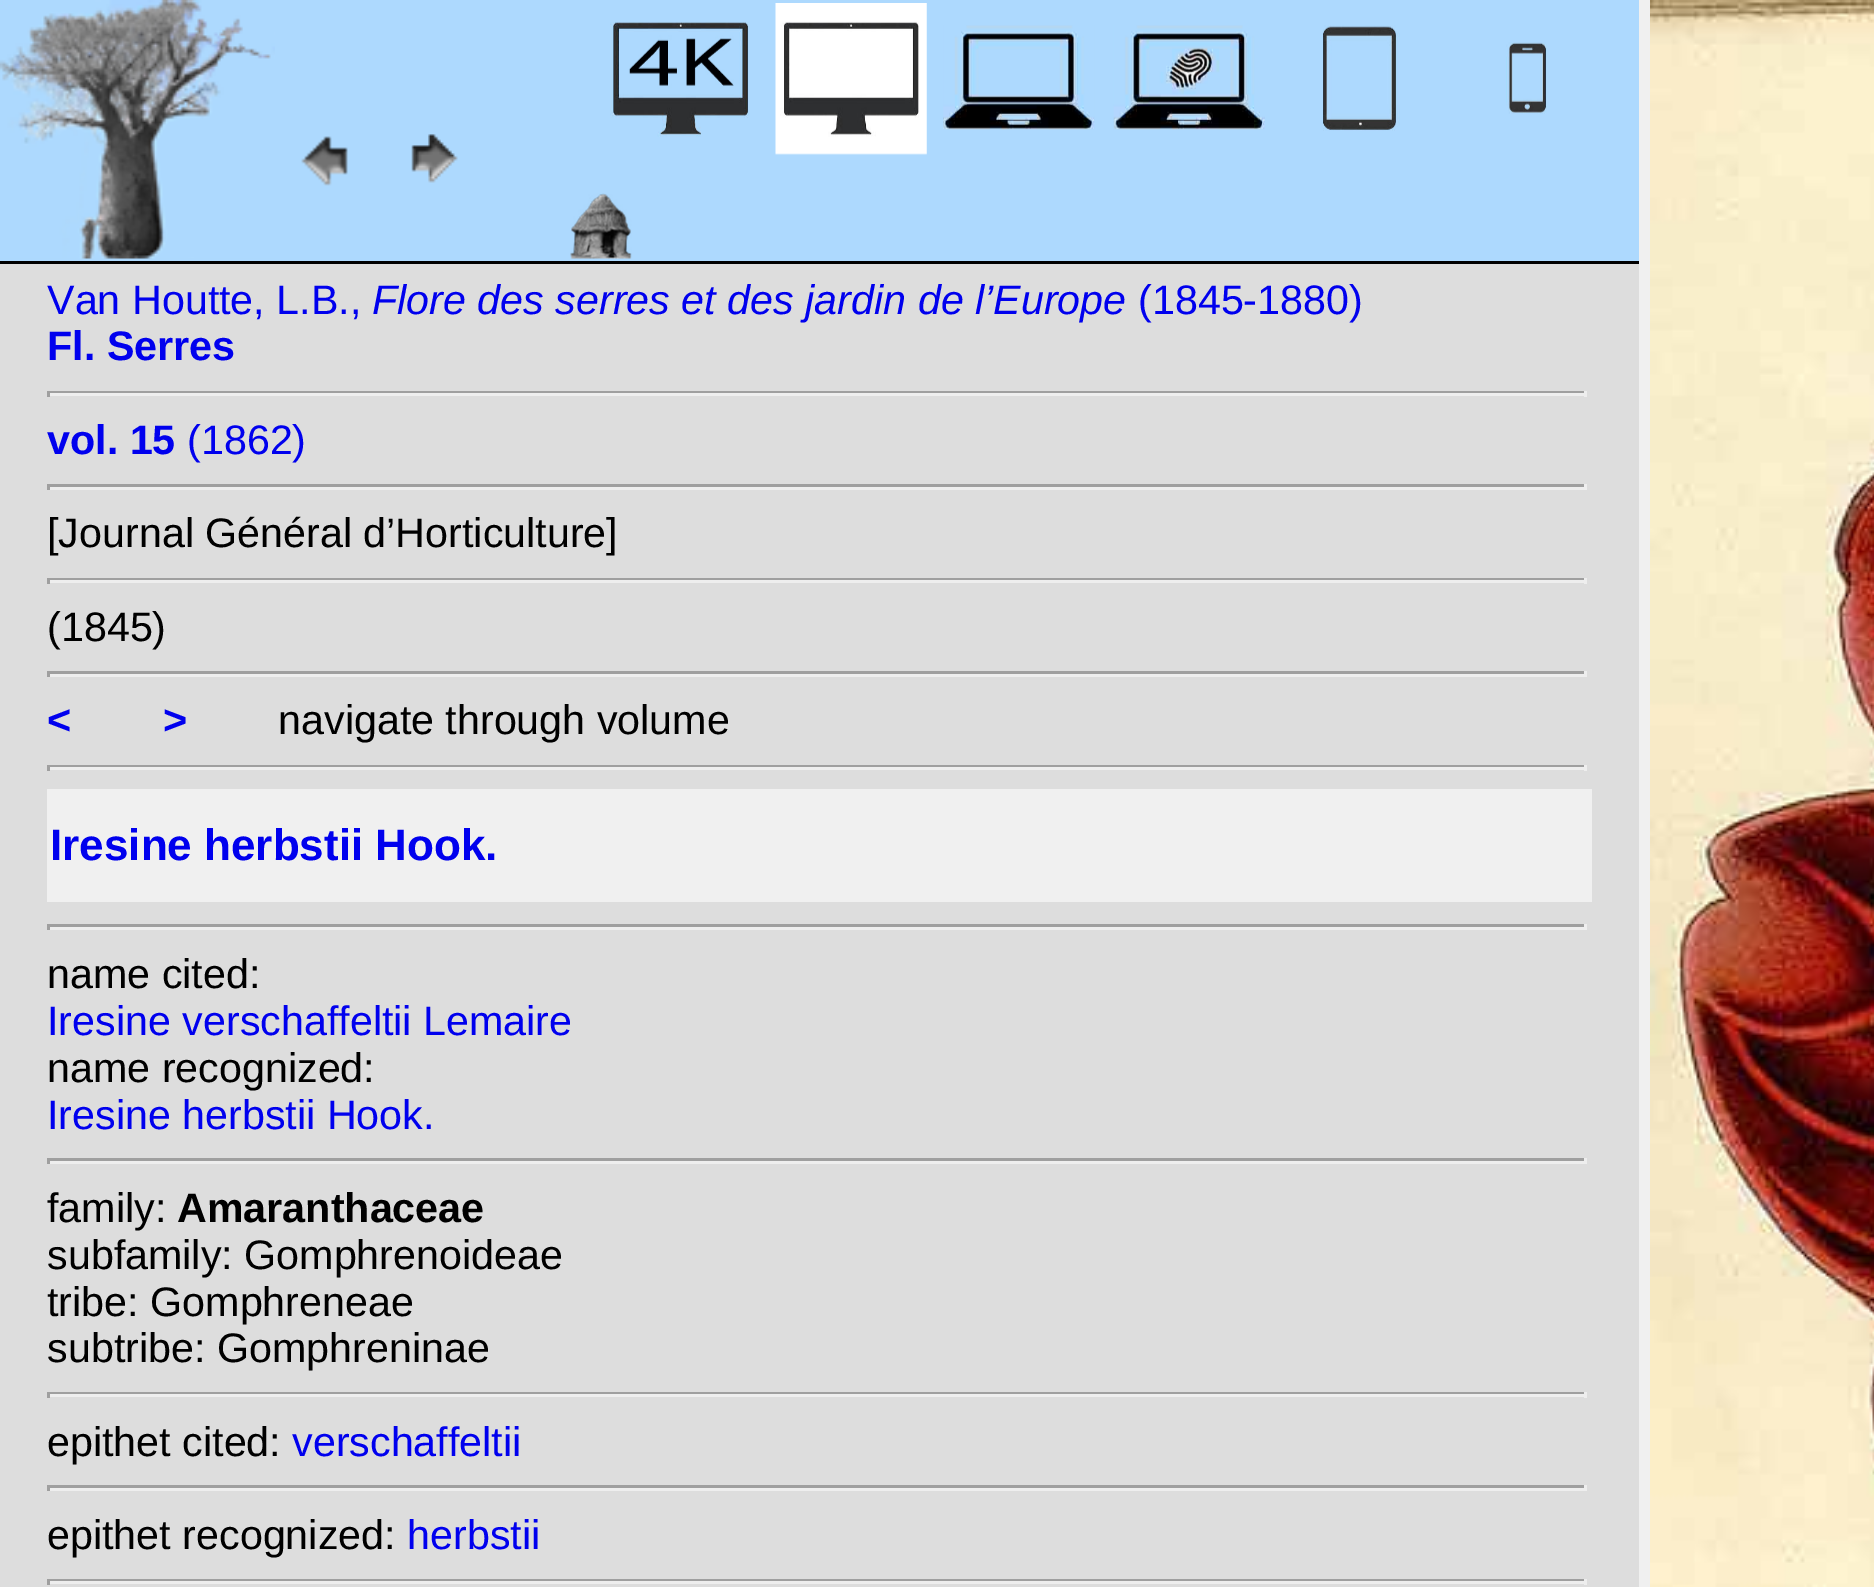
%!PS
<< /PageSize [1874 1587] >> setpagedevice
/rgb { 3 { 255 div 3 1 roll } repeat setrgbcolor } def
/font { [ exch dup neg 0 0 3 -1 roll 0 0 ] selectfont } def
/text { moveto show } def
/picture { 5 dict begin { /h /w /y /x /name } { exch def } forall
  gsave x y translate w h scale
  w h 8 [w 0 0 h 0 0] name (r) file false 3 colorimage grestore end } def
0 1587 translate 1 -1 scale
4 setmiterlimit
240 240 240 rgb
0 0 1874 1587 rectfill
221 221 221 rgb
0 264 1639 1323 rectfill
173 217 254 rgb
0 0 1639 261 rectfill
0 0 0 rgb
0 261 1639 3 rectfill
(img_01.rgb) 0 0 275 259 picture
(img_02.rgb) 301 136 47 50 picture
(img_03.rgb) 411 134 47 49 picture
(img_04.rgb) 610 22 139 115 picture
(img_05.rgb) 775 3 152 152 picture
(img_06.rgb) 943 25 152 105 picture
(img_07.rgb) 1113 25 152 105 picture
(img_08.rgb) 1323 25 77 106 picture
(img_09.rgb) 1506 42 41 72 picture
(img_10.rgb) 570 193 62 66 picture
159 159 159 rgb
47 391 1540 2 rectfill
238 238 238 rgb
1584 391 3 6 rectfill
47 393 1540 3 rectfill
159 159 159 rgb
47 391 3 6 rectfill
47 484 1540 3 rectfill
238 238 238 rgb
1584 484 3 6 rectfill
47 487 1540 3 rectfill
159 159 159 rgb
47 484 3 6 rectfill
47 578 1540 2 rectfill
238 238 238 rgb
1584 578 3 6 rectfill
47 580 1540 3 rectfill
159 159 159 rgb
47 578 3 6 rectfill
47 671 1540 3 rectfill
238 238 238 rgb
1584 671 3 6 rectfill
47 674 1540 3 rectfill
159 159 159 rgb
47 671 3 6 rectfill
47 765 1540 2 rectfill
238 238 238 rgb
1584 765 3 6 rectfill
47 767 1540 3 rectfill
159 159 159 rgb
47 765 3 6 rectfill
240 240 240 rgb
47 789 1545 113 rectfill
159 159 159 rgb
47 924 1540 3 rectfill
238 238 238 rgb
1584 924 3 6 rectfill
47 927 1540 3 rectfill
159 159 159 rgb
47 924 3 6 rectfill
47 1158 1540 3 rectfill
238 238 238 rgb
1584 1158 3 6 rectfill
47 1161 1540 3 rectfill
159 159 159 rgb
47 1158 3 6 rectfill
47 1392 1540 2 rectfill
238 238 238 rgb
1584 1392 3 6 rectfill
47 1394 1540 3 rectfill
159 159 159 rgb
47 1392 3 6 rectfill
47 1485 1540 3 rectfill
238 238 238 rgb
1584 1485 3 6 rectfill
47 1488 1540 3 rectfill
159 159 159 rgb
47 1485 3 6 rectfill
47 1579 1540 2 rectfill
238 238 238 rgb
1584 1579 3 6 rectfill
47 1581 1540 3 rectfill
159 159 159 rgb
47 1579 3 6 rectfill
(img_11.rgb) 1650 0 224 1587 picture
/LiberationSans-Regular 41.25 font
0 0 238 rgb
(Van Houtte, L.B.,) 47 314 text
/LiberationSans-Italic 41.25 font
(Flore des serres et des jardin de l’Europe) 372 314 text
/LiberationSans-Regular 41.25 font
(\(1845-1880\)) 1138 314 text
/LiberationSans-Bold 41.25 font
(Fl. Serres) 47 360 text
(vol. 15) 47 454 text
/LiberationSans-Regular 41.25 font
(\(1862\)) 187 454 text
0 0 0 rgb
([Journal Général d’Horticulture]) 47 547 text
(\(1845\)) 47 641 text
/LiberationSans-Bold 41.25 font
0 0 238 rgb
(<) 47 734 text
(>) 163 734 text
/LiberationSans-Regular 41.25 font
0 0 0 rgb
(navigate through volume) 278 734 text
/LiberationSans-Bold 44 font
0 0 238 rgb
(Iresine herbstii Hook.) 50 860 text
/LiberationSans-Regular 41.25 font
0 0 0 rgb
(name cited:) 47 988 text
0 0 238 rgb
(Iresine verschaffeltii Lemaire) 47 1035 text
0 0 0 rgb
(name recognized:) 47 1082 text
0 0 238 rgb
(Iresine herbstii Hook.) 47 1129 text
0 0 0 rgb
(family:) 47 1222 text
/LiberationSans-Bold 41.25 font
(Amaranthaceae) 177 1222 text
/LiberationSans-Regular 41.25 font
(subfamily: Gomphrenoideae) 47 1269 text
(tribe: Gomphreneae) 47 1316 text
(subtribe: Gomphreninae) 47 1362 text
(epithet cited:) 47 1456 text
0 0 238 rgb
(verschaffeltii) 292 1456 text
0 0 0 rgb
(epithet recognized:) 47 1549 text
0 0 238 rgb
(herbstii) 407 1549 text
showpage
